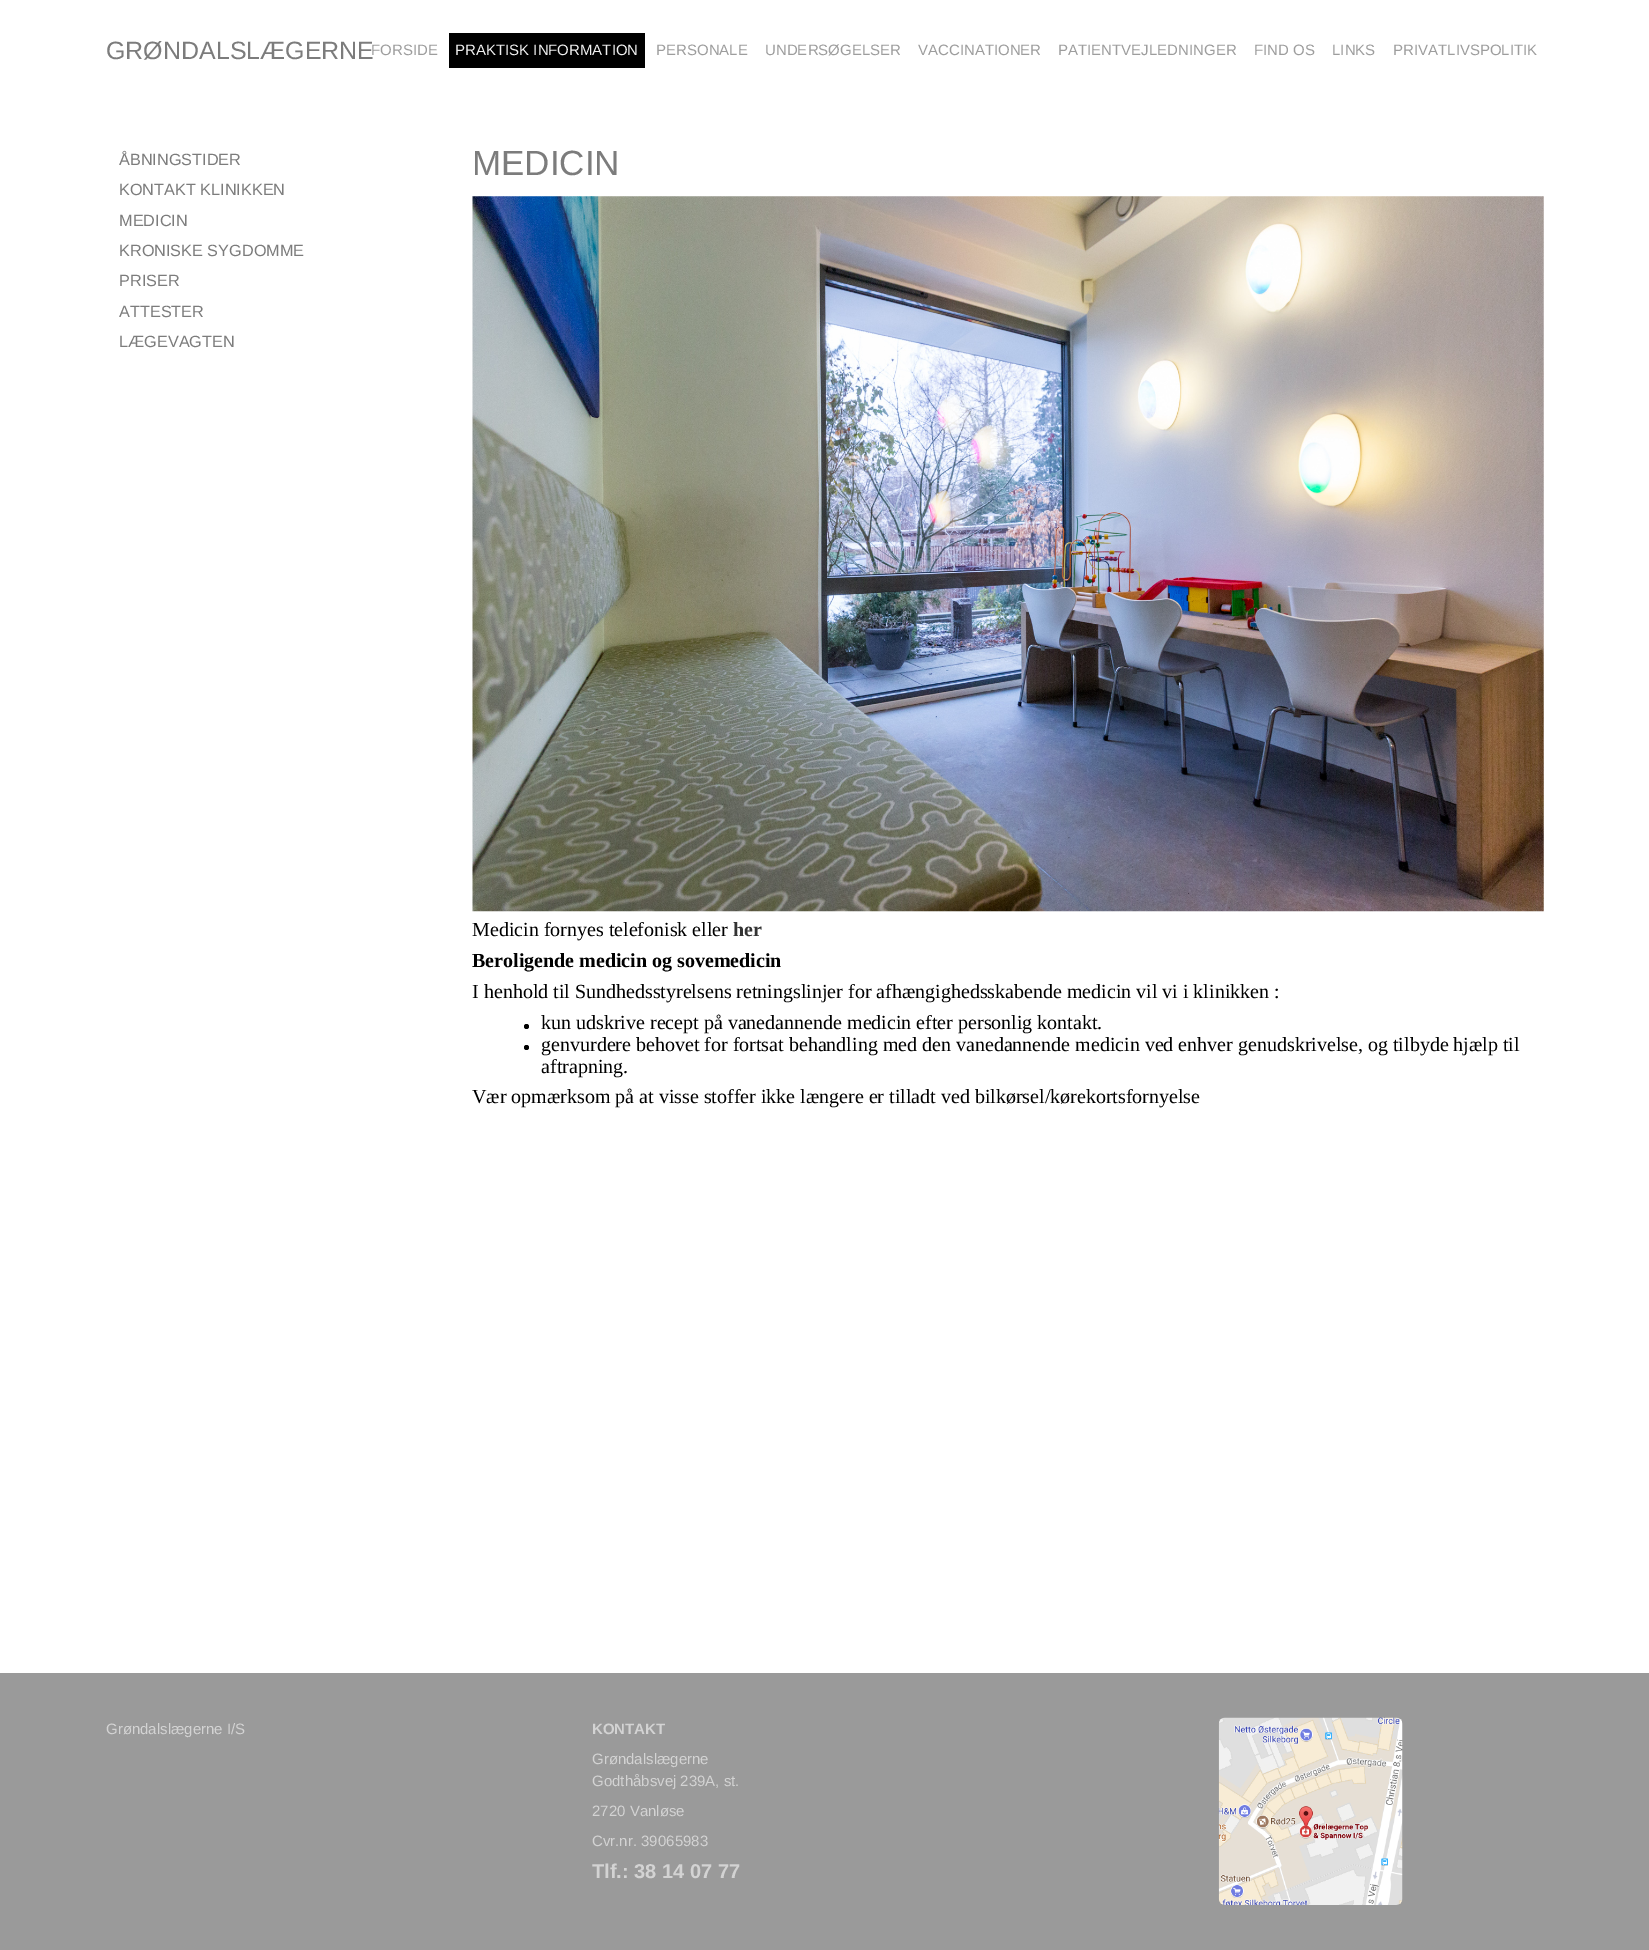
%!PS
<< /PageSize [1649 1950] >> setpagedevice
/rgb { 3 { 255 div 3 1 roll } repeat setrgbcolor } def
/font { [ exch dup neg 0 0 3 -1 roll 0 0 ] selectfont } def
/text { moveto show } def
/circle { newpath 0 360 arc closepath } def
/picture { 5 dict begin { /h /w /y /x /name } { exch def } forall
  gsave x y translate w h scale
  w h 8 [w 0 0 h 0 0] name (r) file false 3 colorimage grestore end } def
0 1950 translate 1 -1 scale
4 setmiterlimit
255 255 255 rgb
0 0 1649 1950 rectfill
0 0 0 rgb
449 33 196 35 rectfill
(img_01.rgb) 472 196 1072 716 picture
526.5 1026.5 2.5 circle fill
526.5 1047.5 2.5 circle fill
154 154 154 rgb
0 1673 1649 277 rectfill
(img_02.rgb) 1218 1717 185 188 picture
/LiberationSans-Regular 25 font
124 124 124 rgb
(GRØNDALSLÆGERNE) 106 59 text
/LiberationSans-Regular 15 font
157 157 157 rgb
(FORSIDE) 371 55 text
240 240 240 rgb
(PRAKTISK INFORMATION) 455 55 text
157 157 157 rgb
(PERSONALE) 656 55 text
(UNDERSØGELSER) 765 55 text
(VACCINATIONER) 918 55 text
(PATIENTVEJLEDNINGER) 1058 55 text
(FIND OS) 1254 55 text
(LINKS) 1332 55 text
(PRIVATLIVSPOLITIK) 1393 55 text
/LiberationSans-Regular 16.25 font
124 124 124 rgb
(ÅBNINGSTIDER) 119 165 text
(KONTAKT KLINIKKEN) 119 195 text
(MEDICIN) 119 226 text
(KRONISKE SYGDOMME) 119 256 text
(PRISER) 119 286 text
(ATTESTER) 119 317 text
(LÆGEVAGTEN) 119 347 text
/LiberationSans-Regular 35 font
(MEDICIN) 472 175 text
/LiberationSerif-Regular 20 font
0 0 0 rgb
(Medicin fornyes telefonisk eller) 472 936 text
/LiberationSerif-Bold 20 font
51 51 51 rgb
(her) 733 936 text
0 0 0 rgb
(Beroligende medicin og sovemedicin) 472 967 text
/LiberationSerif-Regular 20 font
(I henhold til Sundhedsstyrelsens retningslinjer for afhængighedsskabende medicin vil vi i klinikken :) 472 998 text
(kun udskrive recept på vanedannende medicin efter personlig kontakt.) 541 1029 text
(genvurdere behovet for fortsat behandling med den vanedannende medicin ved enhver genudskrivelse, og tilbyde hjælp til) 541 1051 text
(aftrapning.) 541 1073 text
(Vær opmærksom på at visse stoffer ikke længere er tilladt ved bilkørsel/kørekortsfornyelse) 472 1103 text
/LiberationSans-Regular 15 font
211 211 211 rgb
(Grøndalslægerne I/S) 106 1734 text
/LiberationSans-Bold 15 font
(KONTAKT) 592 1734 text
/LiberationSans-Regular 15 font
(Grøndalslægerne) 592 1764 text
(Godthåbsvej 239A, st.) 592 1786 text
(2720 Vanløse) 592 1816 text
(Cvr.nr. 39065983) 592 1846 text
/LiberationSans-Bold 20 font
(Tlf.: 38 14 07 77) 592 1878 text
showpage
